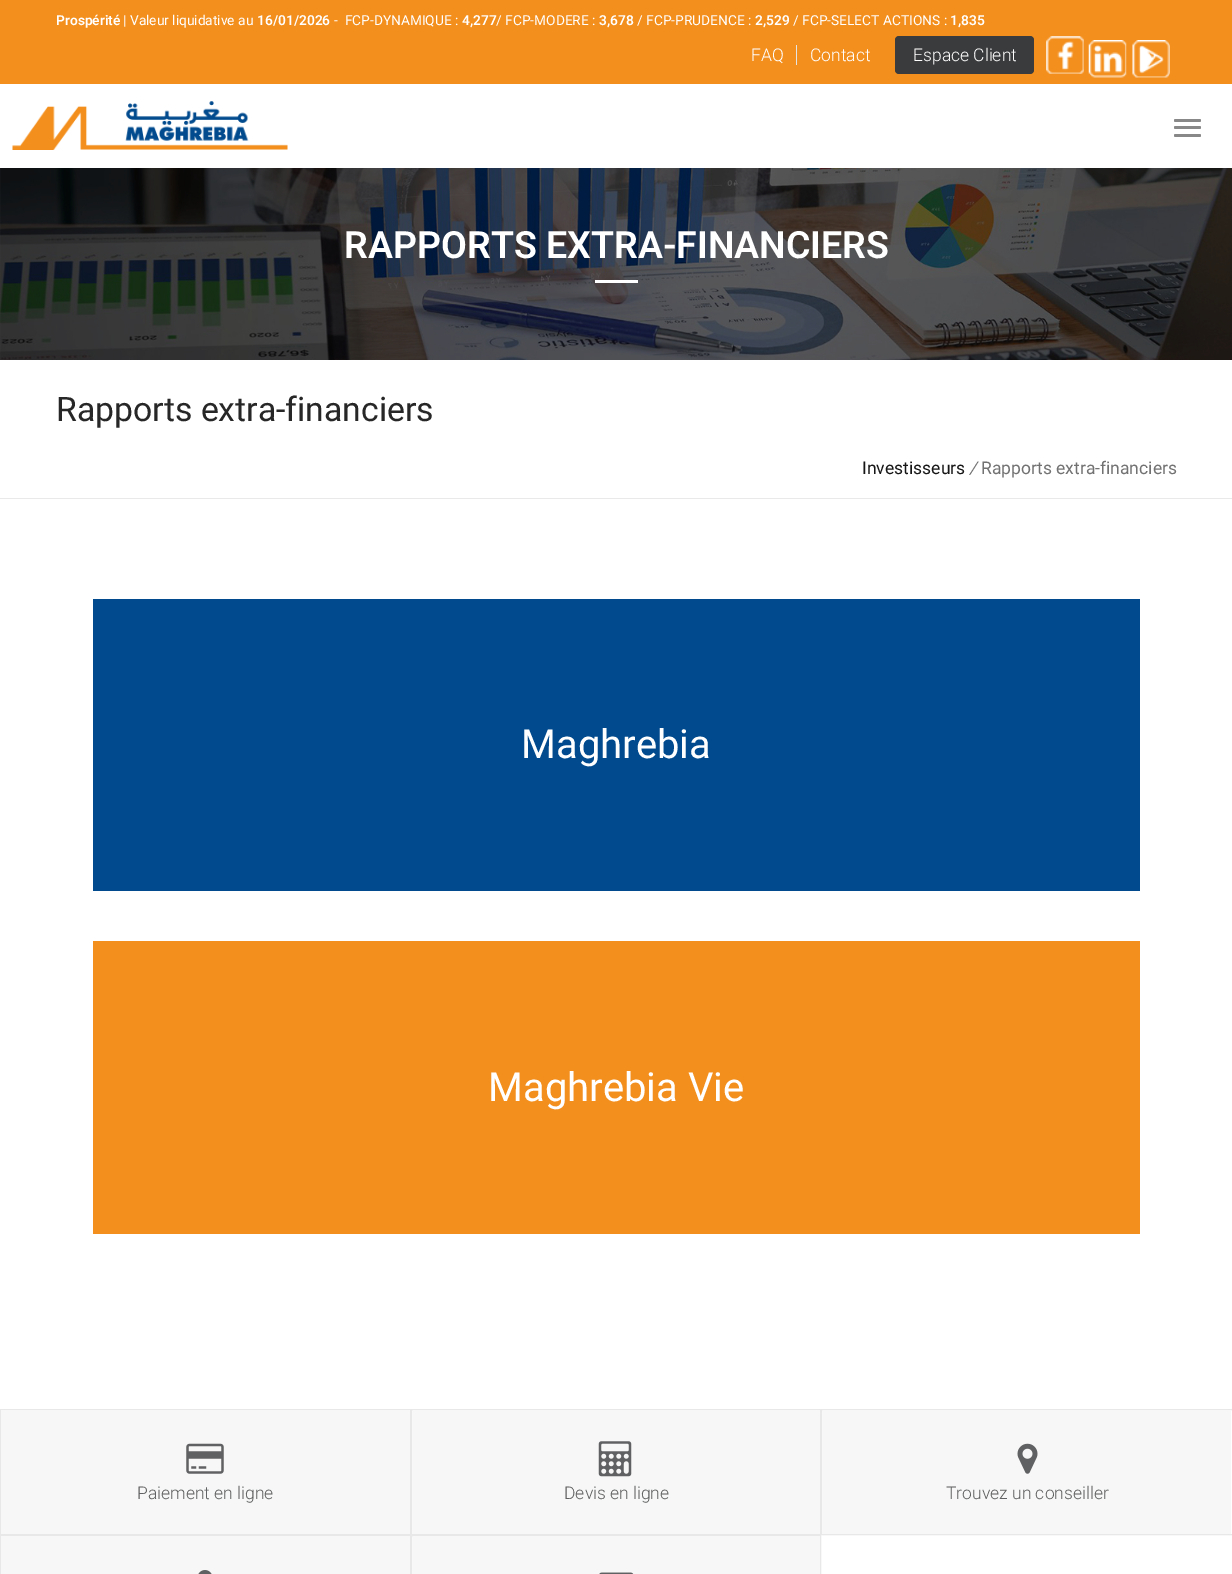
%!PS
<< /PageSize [1232 1574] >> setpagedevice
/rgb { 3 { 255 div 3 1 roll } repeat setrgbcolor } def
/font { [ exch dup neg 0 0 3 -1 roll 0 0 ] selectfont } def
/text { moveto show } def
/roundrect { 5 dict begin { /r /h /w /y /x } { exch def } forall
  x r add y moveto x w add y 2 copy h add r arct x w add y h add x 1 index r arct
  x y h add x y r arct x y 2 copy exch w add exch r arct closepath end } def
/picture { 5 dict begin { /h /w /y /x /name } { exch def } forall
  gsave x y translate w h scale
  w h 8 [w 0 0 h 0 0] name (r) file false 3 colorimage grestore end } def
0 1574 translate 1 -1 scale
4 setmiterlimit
255 255 255 rgb
0 0 1232 1574 rectfill
243 143 29 rgb
0 0 1232 84 rectfill
228 228 228 rgb
796 45 1 20 rectfill
58 59 61 rgb
895 36 139 38 4 roundrect fill
(img_01.rgb) 1046 36 38 38 picture
(img_02.rgb) 1088 40 39 38 picture
(img_03.rgb) 1132 40 38 38 picture
(img_04.rgb) 12 101 276 49 picture
136 136 136 rgb
1174 119 27 3 1.5 roundrect fill
1174 126 27 3 1.5 roundrect fill
1174 134 27 3 1.5 roundrect fill
(img_05.rgb) 0 168 1232 192 picture
255 255 255 rgb
595 280 43 3 rectfill
233 233 233 rgb
0 498 1232 1 rectfill
0 74 141 rgb
93 599 1047 292 rectfill
243 143 29 rgb
93 941 1047 293 rectfill
232 232 232 rgb
0.5 1409.5 410 125 rectstroke
247 247 247 rgb
1 1410 409 124 rectfill
(img_06.rgb) 186 1443 38 31 picture
232 232 232 rgb
411.5 1409.5 409 125 rectstroke
247 247 247 rgb
413 1410 407 124 rectfill
(img_07.rgb) 598 1441 34 36 picture
232 232 232 rgb
821.5 1409.5 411 125 rectstroke
247 247 247 rgb
823 1410 408 124 rectfill
(img_08.rgb) 1017 1443 21 31 picture
232 232 232 rgb
0.5 1535.5 410 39 rectstroke
247 247 247 rgb
1 1536 409 38 rectfill
(img_09.rgb) 198 1570 14 4 picture
232 232 232 rgb
411.5 1535.5 409 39 rectstroke
247 247 247 rgb
413 1536 407 38 rectfill
(img_10.rgb) 599 1572 35 2 picture
/Roboto-SemiBold 13.75 font
255 255 255 rgb
(Prospérité) 56 25 text
/Roboto-Regular 13.75 font
(| Valeur liquidative au) 123 25 text
/Roboto-SemiBold 13.75 font
(16/01/2026) 257 25 text
/Roboto-Regular 13.75 font
(-  FCP-DYNAMIQUE :) 334 25 text
/Roboto-SemiBold 13.75 font
(4,277) 462 25 text
/Roboto-Regular 13.75 font
(/ FCP-MODERE :) 496 25 text
/Roboto-SemiBold 13.75 font
(3,678) 599 25 text
/Roboto-Regular 13.75 font
(/ FCP-PRUDENCE :) 637 25 text
/Roboto-SemiBold 13.75 font
(2,529) 755 25 text
/Roboto-Regular 13.75 font
(/ FCP-SELECT ACTIONS :) 793 25 text
/Roboto-SemiBold 13.75 font
(1,835) 950 25 text
/Roboto-Light 17.5 font
(FAQ) 751 61 text
(Contact) 810 61 text
(Espace Client) 913 61 text
/Roboto-SemiBold 37.5 font
(RAPPORTS EXTRA-FINANCIERS) 344 258 text
/Roboto-Regular 33.75 font
39 39 39 rgb
(Rapports extra-financiers) 56 421 text
/Roboto-Regular 17.5 font
22 22 22 rgb
(Investisseurs) 862 474 text
/Roboto-Italic 17.5 font
114 114 114 rgb
(/) 969 474 text
/Roboto-Regular 17.5 font
(Rapports extra-financiers) 981 474 text
/Roboto-Regular 40 font
255 255 255 rgb
(Maghrebia) 521 758 text
(Maghrebia Vie) 488 1101 text
/Roboto-Light 17.5 font
96 97 98 rgb
(Paiement en ligne) 137 1499 text
(Devis en ligne) 564 1499 text
(Trouvez un conseiller) 946 1499 text
showpage
